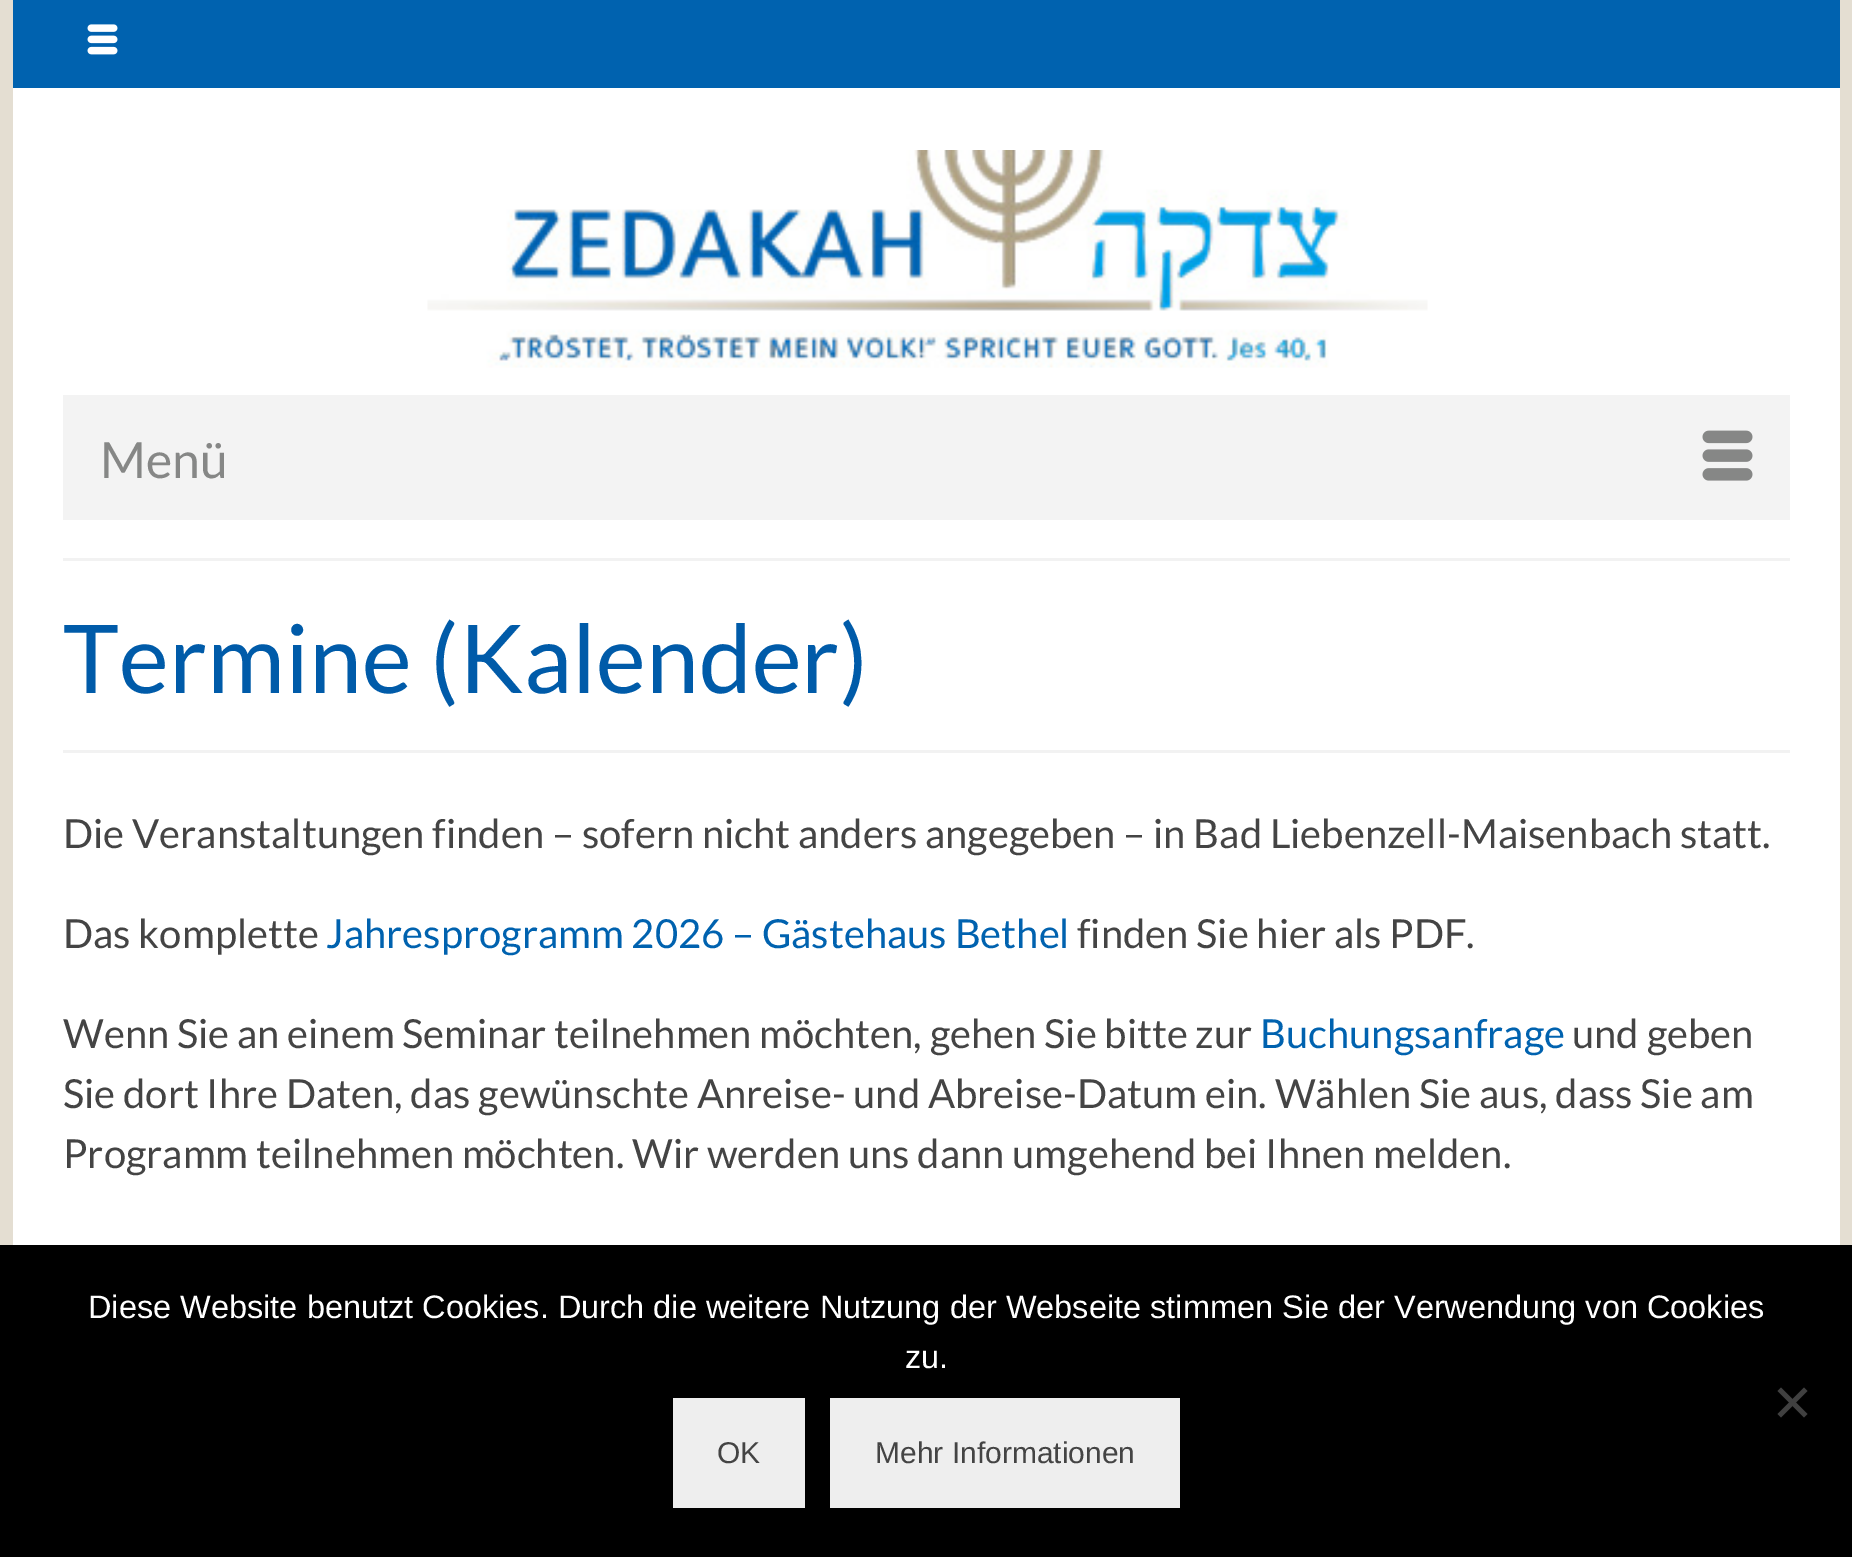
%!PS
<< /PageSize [1852 1557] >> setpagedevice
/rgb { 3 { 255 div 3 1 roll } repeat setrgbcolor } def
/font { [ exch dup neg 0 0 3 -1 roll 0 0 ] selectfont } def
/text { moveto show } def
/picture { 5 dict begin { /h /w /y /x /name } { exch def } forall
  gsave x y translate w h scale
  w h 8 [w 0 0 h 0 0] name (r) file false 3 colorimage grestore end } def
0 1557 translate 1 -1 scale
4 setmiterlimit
228 222 210 rgb
0 0 1852 1557 rectfill
255 255 255 rgb
13 88 1827 1157 rectfill
0 98 175 rgb
13 0 1827 88 rectfill
(img_01.rgb) 87 24 31 31 picture
(img_02.rgb) 427 150 1001 218 picture
243 243 243 rgb
63 395 1727 125 rectfill
(img_03.rgb) 1702 430 51 51 picture
242 242 242 rgb
63 558 1727 3 rectfill
63 750 1727 3 rectfill
0 0 0 rgb
0 1245 1852 312 rectfill
64 64 64 rgb
1804 1387.5 moveto 3.5 3.5 rlineto -26.5 26.5 rlineto -3.5 -3.5 rlineto closepath fill
1777.5 1391 moveto 3.5 -3.5 rlineto 26.5 26.5 rlineto -3.5 3.5 rlineto closepath fill
238 238 238 rgb
673 1398 132 110 rectfill
830 1398 350 110 rectfill
/Lato-Regular 50 font
134 135 134 rgb
(Menü) 100 478 text
/Lato-Regular 95 font
0 91 169 rgb
(Termine \(Kalender\)) 63 693 text
/Lato-Regular 40 font
68 68 68 rgb
(Die Veranstaltungen finden – sofern nicht anders angegeben – in Bad Liebenzell-Maisenbach statt.) 63 848 text
(Das komplette) 63 948 text
0 98 175 rgb
(Jahresprogramm 2026 – Gästehaus Bethel) 326 948 text
68 68 68 rgb
(finden Sie hier als PDF.) 1077 948 text
(Wenn Sie an einem Seminar teilnehmen möchten, gehen Sie bitte zur) 63 1048 text
0 98 175 rgb
(Buchungsanfrage) 1260 1048 text
68 68 68 rgb
(und geben) 1572 1048 text
(Sie dort Ihre Daten, das gewünschte Anreise- und Abreise-Datum ein. Wählen Sie aus, dass Sie am) 63 1108 text
(Programm teilnehmen möchten. Wir werden uns dann umgehend bei Ihnen melden.) 63 1168 text
/LiberationSans-Regular 32.5 font
255 255 255 rgb
(Diese Website benutzt Cookies. Durch die weitere Nutzung der Webseite stimmen Sie der Verwendung von Cookies) 88 1318 text
(zu.) 905 1368 text
/LiberationSans-Regular 30 font
68 68 68 rgb
(OK) 717 1463 text
(Mehr Informationen) 875 1463 text
showpage
